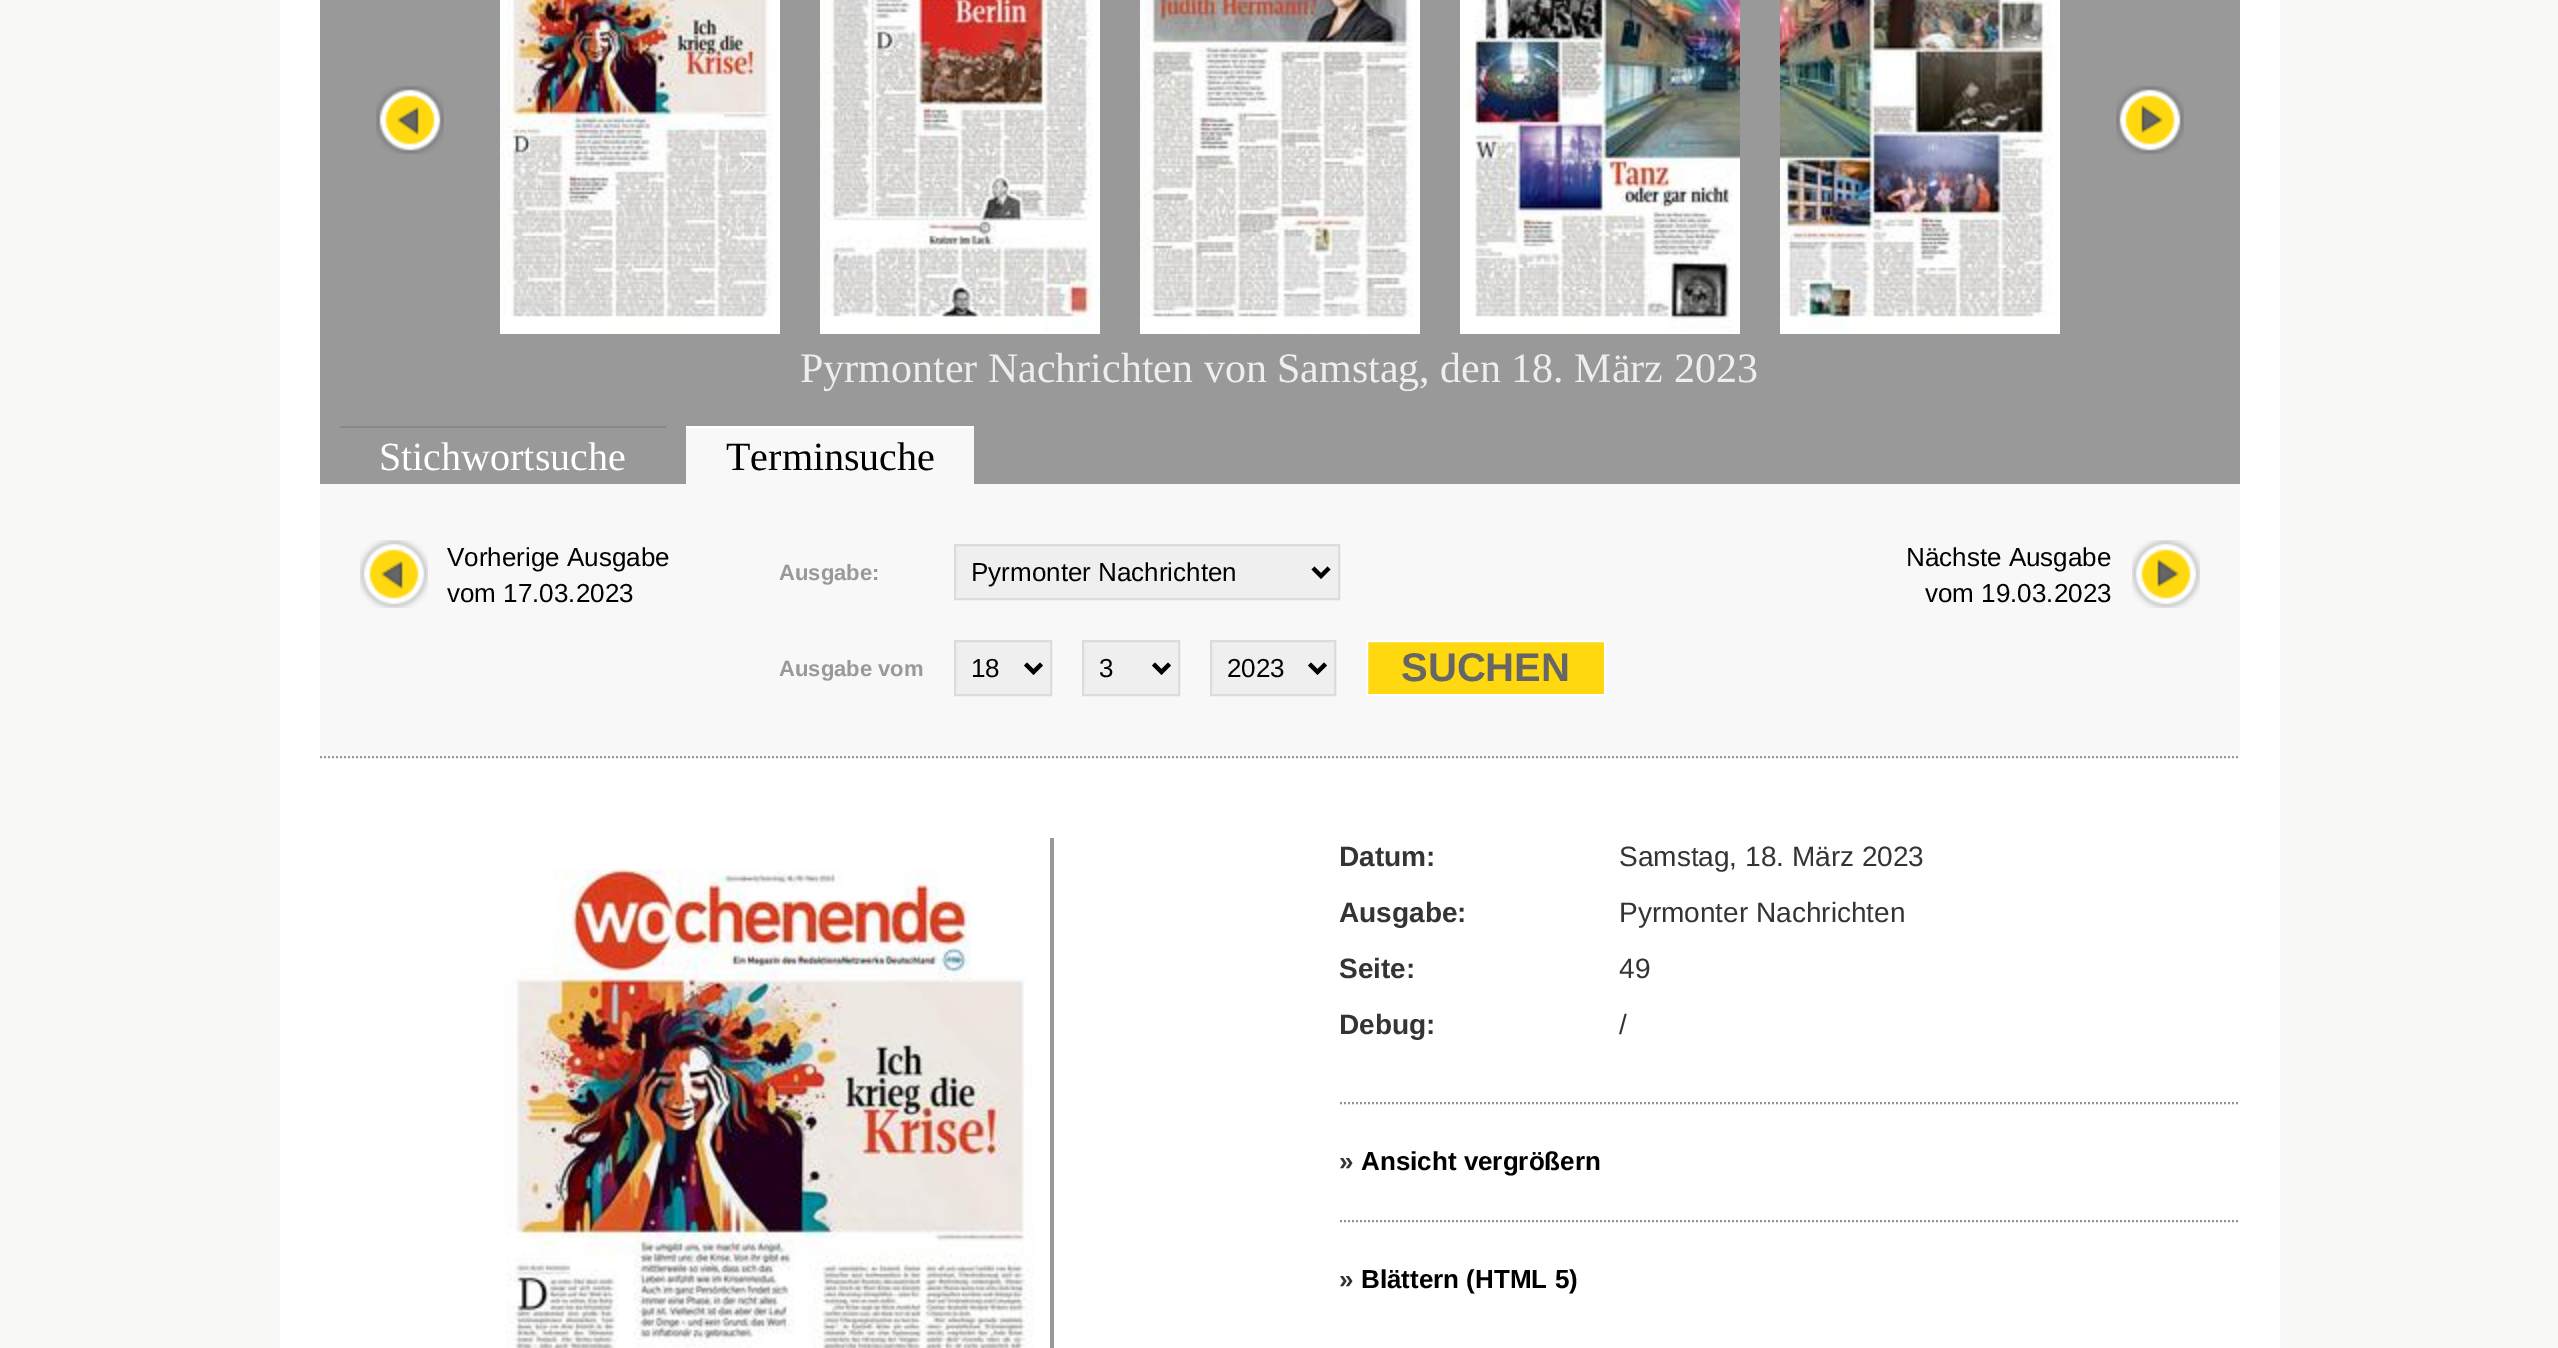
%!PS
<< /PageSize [2558 1348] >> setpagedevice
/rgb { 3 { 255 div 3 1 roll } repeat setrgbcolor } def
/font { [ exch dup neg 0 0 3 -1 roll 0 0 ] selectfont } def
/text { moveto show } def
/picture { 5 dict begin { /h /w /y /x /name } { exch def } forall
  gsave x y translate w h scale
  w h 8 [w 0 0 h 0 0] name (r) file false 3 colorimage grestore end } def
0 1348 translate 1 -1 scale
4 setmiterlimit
248 248 247 rgb
0 0 2558 1348 rectfill
255 255 255 rgb
280 0 2000 1348 rectfill
153 153 153 rgb
320 0 1920 484 rectfill
(img_01.rgb) 376 86 68 68 picture
(img_02.rgb) 500 0 280 334 picture
(img_03.rgb) 820 0 280 334 picture
(img_04.rgb) 1140 0 280 334 picture
(img_05.rgb) 1460 0 280 334 picture
(img_06.rgb) 1780 0 280 334 picture
(img_07.rgb) 2116 86 68 68 picture
248 248 248 rgb
320 484 1920 274 rectfill
153 153 153 rgb
2 setlinewidth
[2 2] 0 setdash
320 757 moveto 1920 0 rlineto stroke
136 136 136 rgb
340 426 326 2 rectfill
248 248 248 rgb
686 428 288 56 rectfill
255 255 255 rgb
686 426 288 2 rectfill
(img_08.rgb) 360 540 68 68 picture
239 239 239 rgb
955 545 moveto 384 0 rlineto 0 54 rlineto -384 0 rlineto closepath gsave fill grestore
220 220 220 rgb
[] 0 setdash
stroke
0 0 0 rgb
4 setlinewidth
1313 568 moveto 8 8 rlineto 8 -8 rlineto stroke
239 239 239 rgb
955 641 moveto 96 0 rlineto 0 54 rlineto -96 0 rlineto closepath gsave fill grestore
220 220 220 rgb
2 setlinewidth
stroke
0 0 0 rgb
4 setlinewidth
1025.5 664 moveto 8 8 rlineto 8 -8 rlineto stroke
239 239 239 rgb
1083 641 moveto 96 0 rlineto 0 54 rlineto -96 0 rlineto closepath gsave fill grestore
220 220 220 rgb
2 setlinewidth
stroke
0 0 0 rgb
4 setlinewidth
1153.5 664 moveto 8 8 rlineto 8 -8 rlineto stroke
239 239 239 rgb
1211 641 moveto 124 0 rlineto 0 54 rlineto -124 0 rlineto closepath gsave fill grestore
220 220 220 rgb
2 setlinewidth
stroke
0 0 0 rgb
4 setlinewidth
1309.5 664 moveto 8 8 rlineto 8 -8 rlineto stroke
255 216 15 rgb
1367 641 moveto 238 0 rlineto 0 54 rlineto -238 0 rlineto closepath gsave fill grestore
255 255 255 rgb
2 setlinewidth
stroke
(img_09.rgb) 2132 540 68 68 picture
(img_10.rgb) 506 868 528 480 picture
153 153 153 rgb
1050 838 4 510 rectfill
145 146 148 rgb
[2 2] 0 setdash
1340 1103 moveto 900 0 rlineto stroke
1340 1221 moveto 900 0 rlineto stroke
/LiberationSerif-Regular 42 font
238 238 238 rgb
(Pyrmonter Nachrichten von Samstag, den 18. März 2023) 800 382 text
/LiberationSerif-Regular 40 font
255 255 255 rgb
(Stichwortsuche) 379 470 text
0 0 0 rgb
(Terminsuche) 726 470 text
/LiberationSans-Regular 26 font
(Vorherige Ausgabe) 447 566 text
(vom 17.03.2023) 447 602 text
/LiberationSans-Bold 22 font
153 153 153 rgb
(Ausgabe:) 779 580 text
/LiberationSans-Regular 26 font
0 0 0 rgb
(Pyrmonter Nachrichten) 971 581 text
/LiberationSans-Bold 22 font
153 153 153 rgb
(Ausgabe vom) 779 676 text
/LiberationSans-Regular 26 font
0 0 0 rgb
(18) 971 677 text
(3) 1099 677 text
(2023) 1227 677 text
/LiberationSans-Bold 40 font
102 102 102 rgb
(SUCHEN) 1401 681 text
/LiberationSans-Regular 26 font
0 0 0 rgb
(Nächste Ausgabe) 1906 566 text
(vom 19.03.2023) 1925 602 text
/LiberationSans-Bold 28 font
52 52 52 rgb
(Datum:) 1339 866 text
/LiberationSans-Regular 28 font
(Samstag, 18. März 2023) 1619 866 text
/LiberationSans-Bold 28 font
(Ausgabe:) 1339 922 text
/LiberationSans-Regular 28 font
(Pyrmonter Nachrichten) 1619 922 text
/LiberationSans-Bold 28 font
(Seite:) 1339 978 text
/LiberationSans-Regular 28 font
(49) 1619 978 text
/LiberationSans-Bold 28 font
(Debug:) 1339 1034 text
/LiberationSans-Regular 28 font
(/) 1619 1034 text
/LiberationSans-Bold 26 font
(») 1339 1170 text
0 0 0 rgb
(Ansicht vergrößern) 1361 1170 text
52 52 52 rgb
(») 1339 1288 text
0 0 0 rgb
(Blättern \(HTML 5\)) 1361 1288 text
showpage
